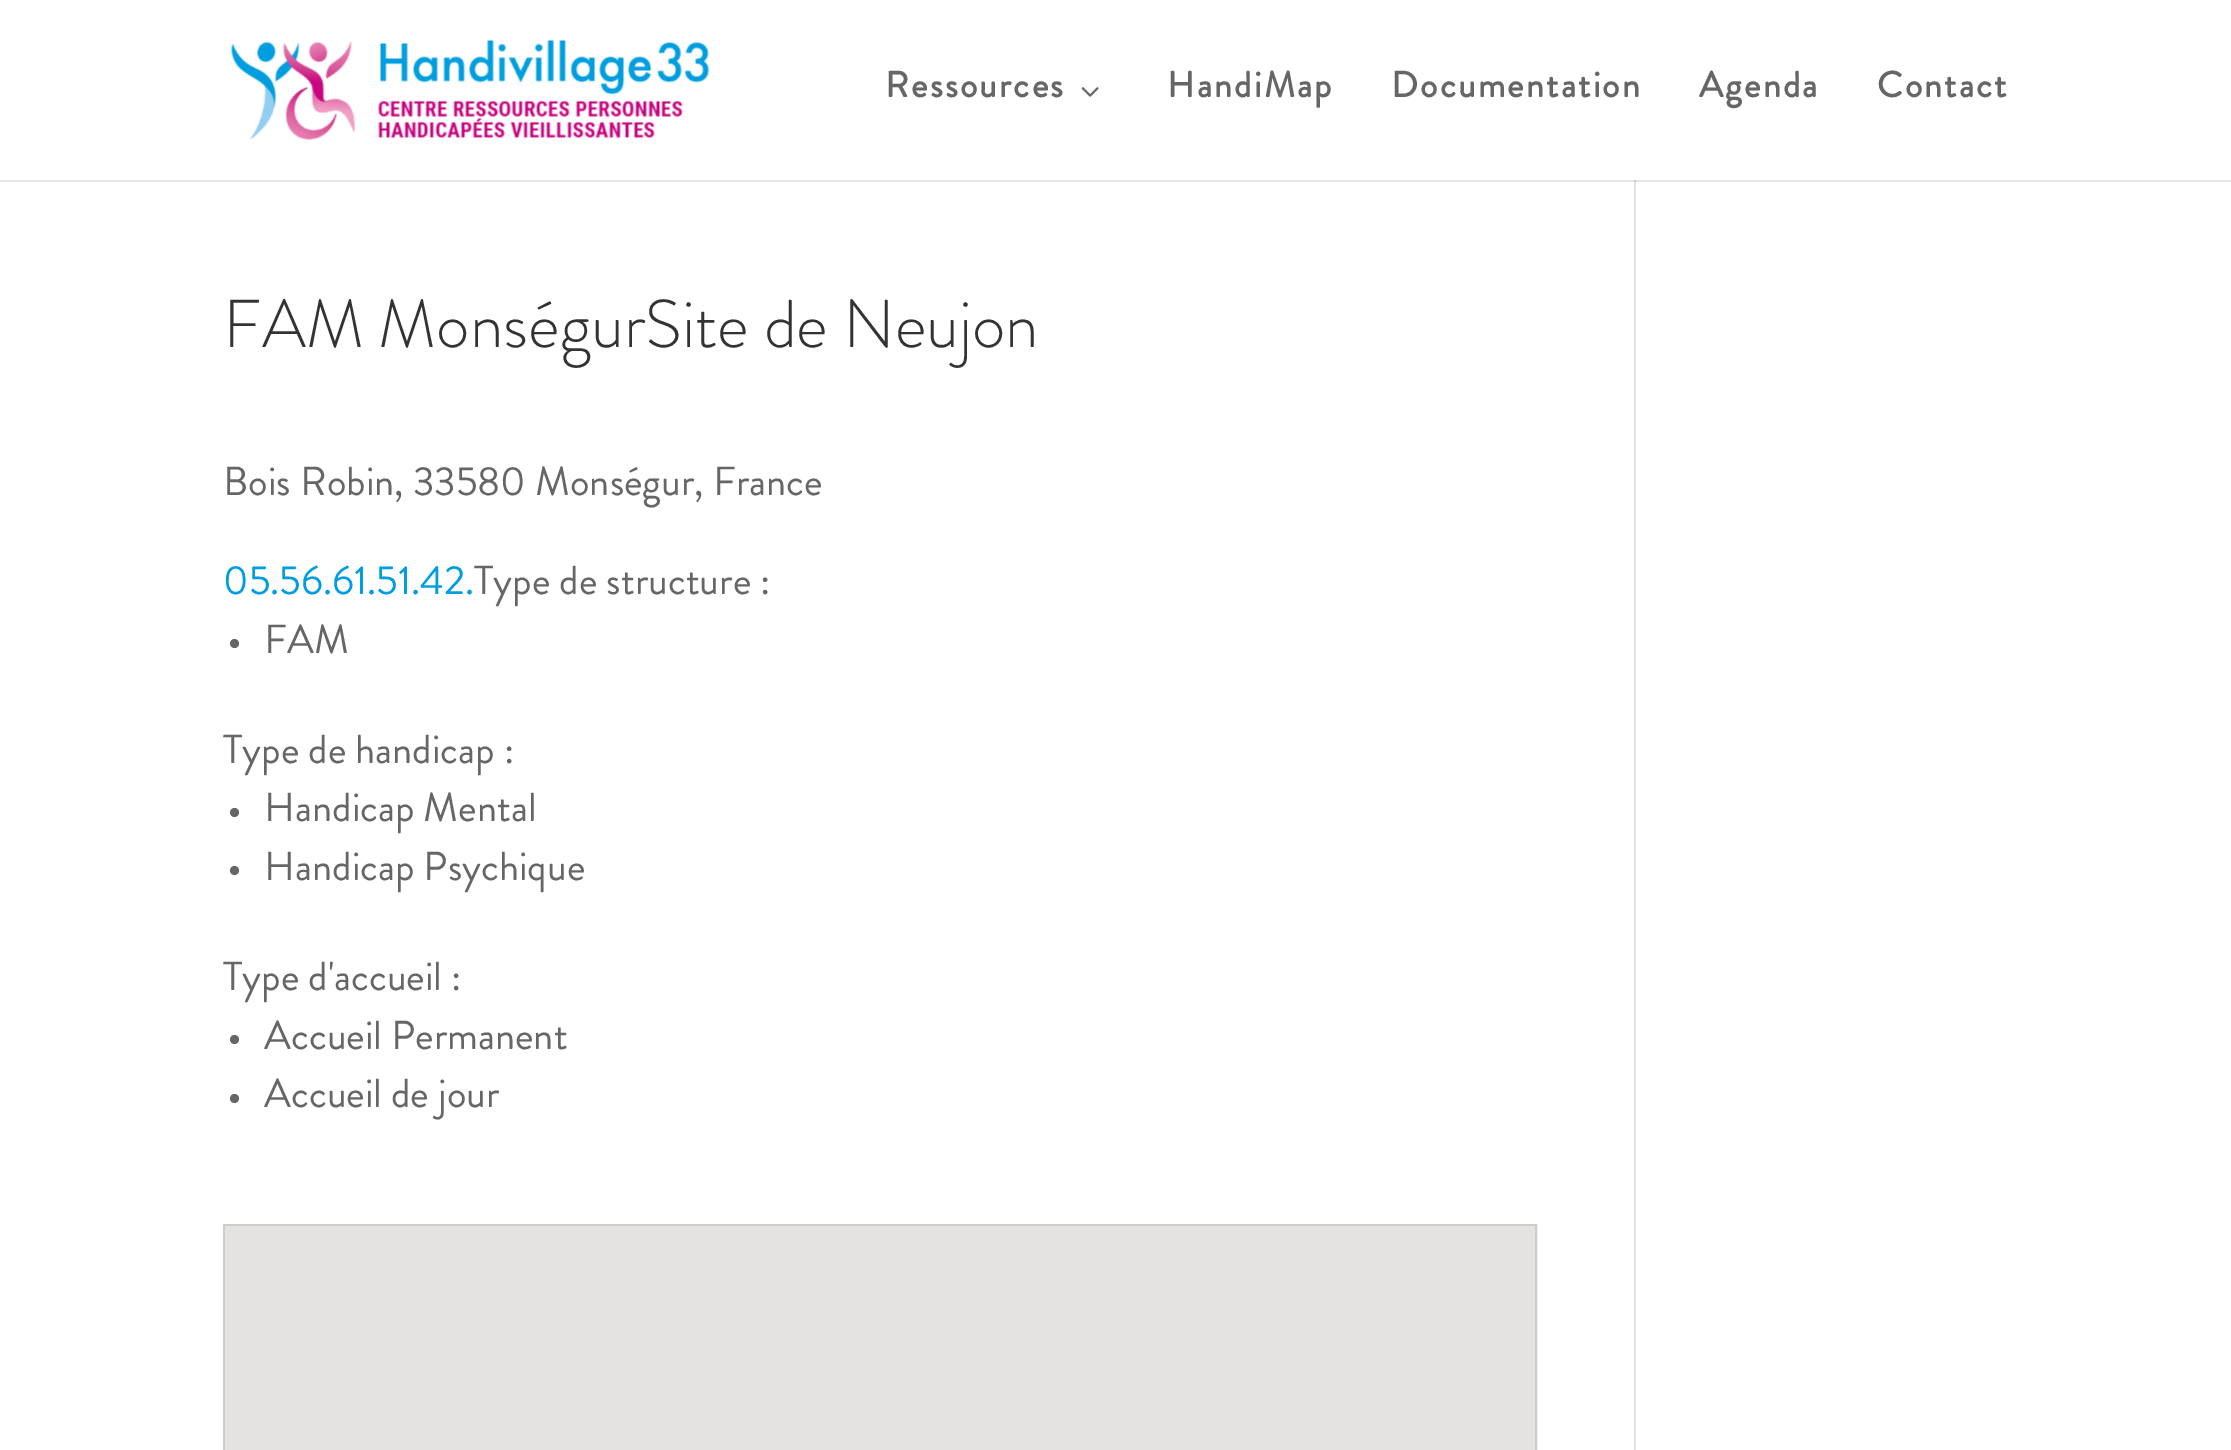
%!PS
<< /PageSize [2231 1450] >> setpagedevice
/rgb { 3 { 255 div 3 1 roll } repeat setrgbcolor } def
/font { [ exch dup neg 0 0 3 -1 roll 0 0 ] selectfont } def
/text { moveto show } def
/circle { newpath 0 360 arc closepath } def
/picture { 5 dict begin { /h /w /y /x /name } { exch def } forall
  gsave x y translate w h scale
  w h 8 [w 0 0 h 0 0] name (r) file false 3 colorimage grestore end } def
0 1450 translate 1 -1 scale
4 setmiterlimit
255 255 255 rgb
0 0 2231 1450 rectfill
230 230 230 rgb
0 180 2231 2 rectfill
(img_01.rgb) 231 40 479 100 picture
(img_02.rgb) 1081 87 18 10 picture
102 102 102 rgb
234.5 643.5 4.5 circle fill
234.5 812.5 4.5 circle fill
234.5 870.5 4.5 circle fill
234.5 1039.5 4.5 circle fill
234.5 1098.5 4.5 circle fill
204 204 204 rgb
2 setlinewidth
224 1225 1312 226 rectstroke
229 227 223 rgb
225 1226 1310 224 rectfill
226 226 226 rgb
1634 182 2 1268 rectfill
203 203 203 rgb
1634 180 2 2 rectfill
/BrandonGrotesque-Bold 36 font
102 102 102 rgb
885 97 moveto 2.25 0 (Ressources) ashow
1167 97 moveto 2.25 0 (HandiMap) ashow
1391 97 moveto 2.25 0 (Documentation) ashow
1699 97 moveto 2.25 0 (Agenda) ashow
1877 97 moveto 2.25 0 (Contact) ashow
/BrandonGrotesque-Light 67.5 font
51 51 51 rgb
(FAM MonségurSite de Neujon) 223 347 text
/BrandonGrotesque-Regular 40.5 font
102 102 102 rgb
(Bois Robin, 33580 Monségur, France) 223 495 text
0 157 225 rgb
(05.56.61.51.42.) 223 594 text
102 102 102 rgb
(Type de structure :) 474 594 text
(FAM) 264 653 text
(Type de handicap :) 223 763 text
(Handicap Mental) 264 821 text
(Handicap Psychique) 264 880 text
(Type d'accueil :) 223 990 text
(Accueil Permanent) 264 1049 text
(Accueil de jour) 264 1107 text
showpage
